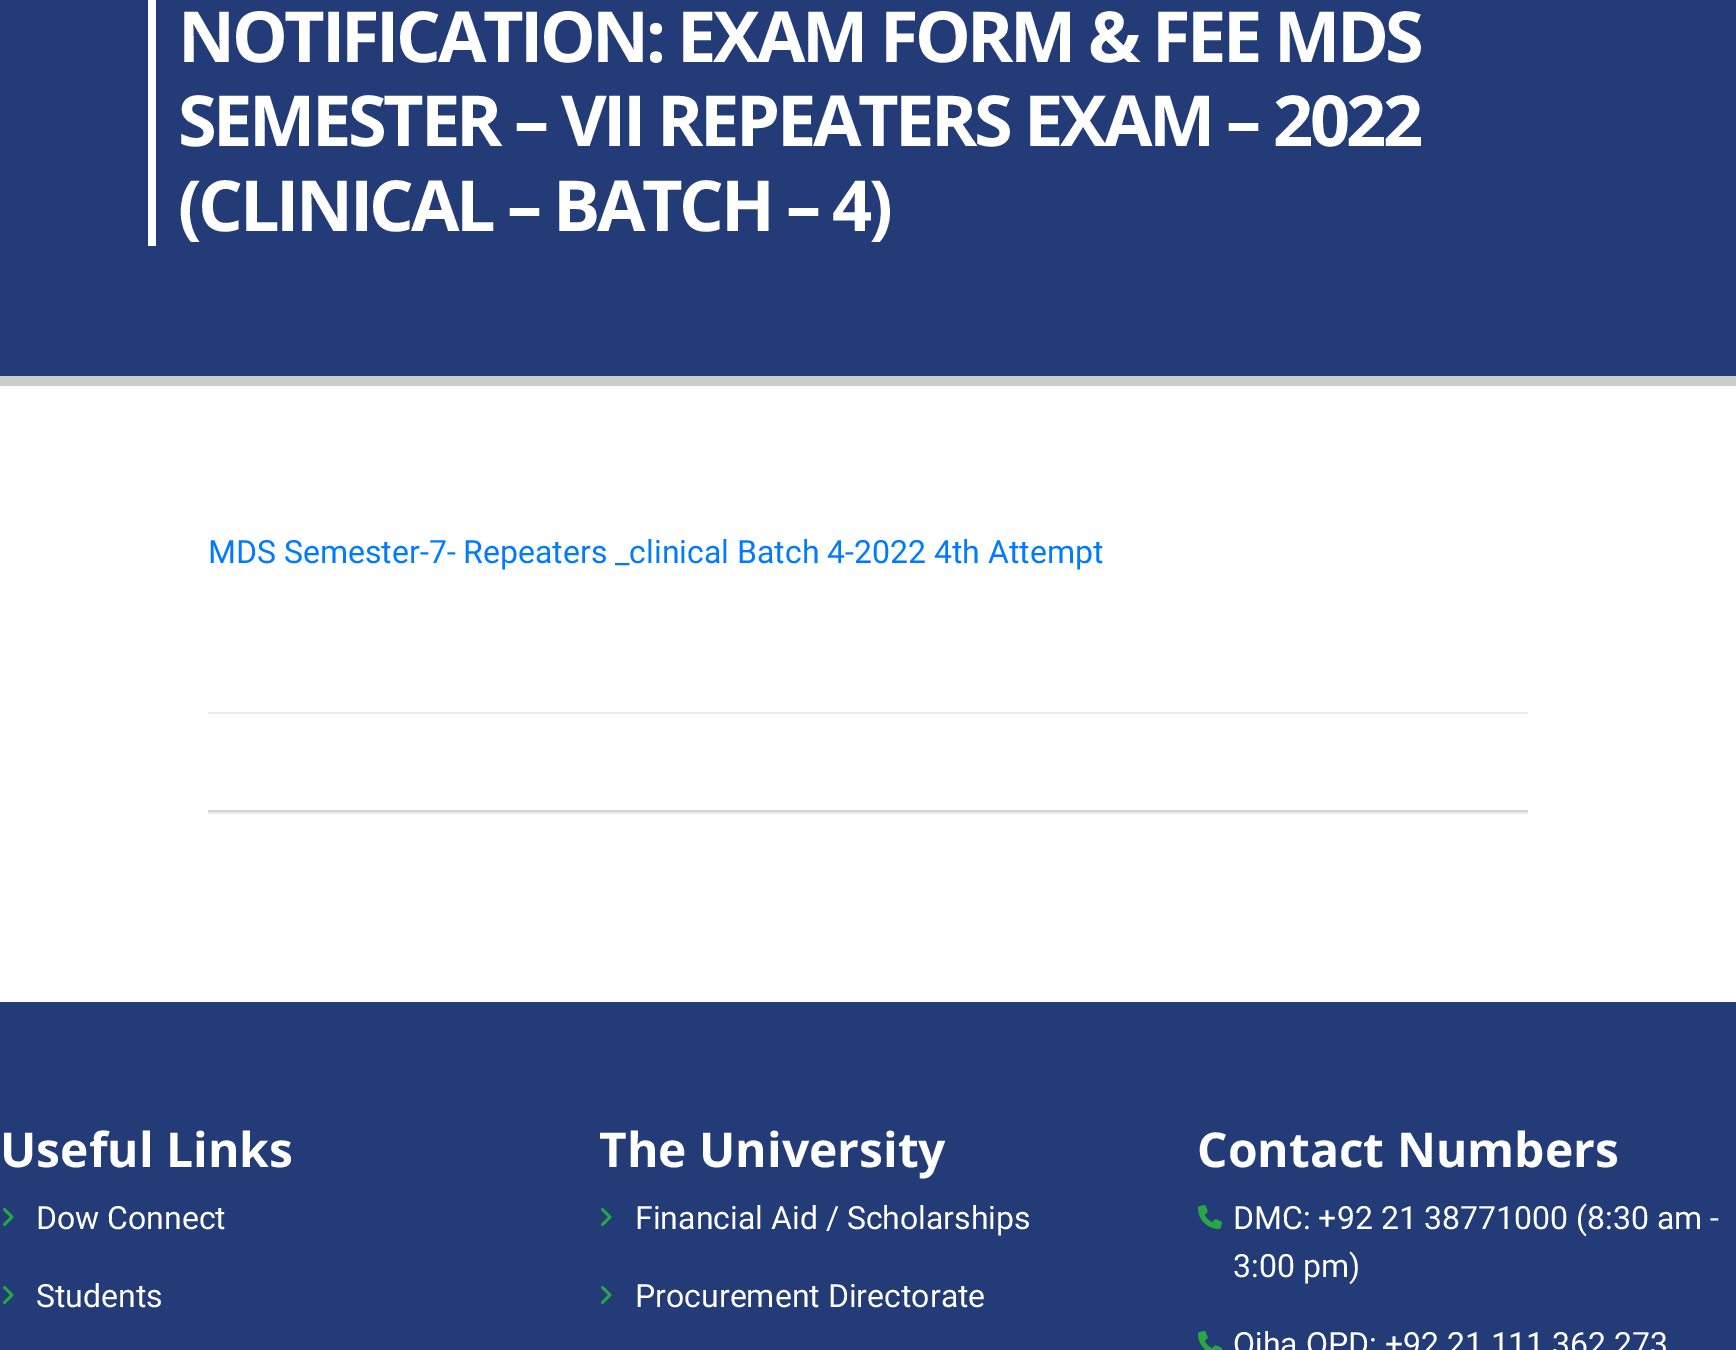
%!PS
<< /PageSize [1736 1350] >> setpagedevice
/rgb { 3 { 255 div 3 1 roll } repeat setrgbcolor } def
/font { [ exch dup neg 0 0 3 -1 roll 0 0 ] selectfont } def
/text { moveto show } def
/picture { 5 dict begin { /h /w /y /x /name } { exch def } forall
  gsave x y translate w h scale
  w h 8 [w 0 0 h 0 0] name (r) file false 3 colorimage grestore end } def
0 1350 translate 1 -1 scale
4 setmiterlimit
255 255 255 rgb
0 0 1736 1350 rectfill
35 59 119 rgb
0 0 1736 376 rectfill
204 204 204 rgb
0 376 1736 10 rectfill
255 255 255 rgb
148 0 8 246 rectfill
235 235 235 rgb
208 712 1320 2 rectfill
208 812 1320 2 rectfill
212 212 212 rgb
208 810 1320 2 rectfill
35 59 119 rgb
0 1002 1736 348 rectfill
(img_01.rgb) 3 1208 11 18 picture
(img_01.rgb) 3 1286 11 18 picture
(img_01.rgb) 601 1208 11 18 picture
(img_01.rgb) 601 1286 11 18 picture
(img_02.rgb) 1198 1205 24 24 picture
(img_03.rgb) 1198 1331 24 19 picture
/OpenSans-Bold 70.4 font
255 255 255 rgb
178 62 moveto -3.5 0 (NOTIFICATION: EXAM FORM & FEE MDS) ashow
178 146 moveto -3.5 0 (SEMESTER – VII REPEATERS EXAM – 2022) ashow
178 231 moveto -3.5 0 (\(CLINICAL – BATCH – 4\)) ashow
/Roboto-Regular 32 font
0 123 255 rgb
(MDS Semester-7- Repeaters _clinical Batch 4-2022 4th Attempt) 208 563 text
/OpenSans-Bold 48 font
255 255 255 rgb
(Useful Links) 0 1167 text
/Roboto-Regular 32 font
(Dow Connect) 36 1229 text
(Students) 36 1307 text
/OpenSans-Bold 48 font
(The University) 599 1167 text
/Roboto-Regular 32 font
(Financial Aid / Scholarships) 635 1229 text
(Procurement Directorate) 635 1307 text
/OpenSans-Bold 48 font
(Contact Numbers) 1197 1167 text
/Roboto-Regular 32 font
(DMC: +92 21 38771000 \(8:30 am -) 1233 1229 text
(3:00 pm\)) 1233 1277 text
(Ojha OPD: +92 21 111 362 273) 1233 1355 text
showpage
